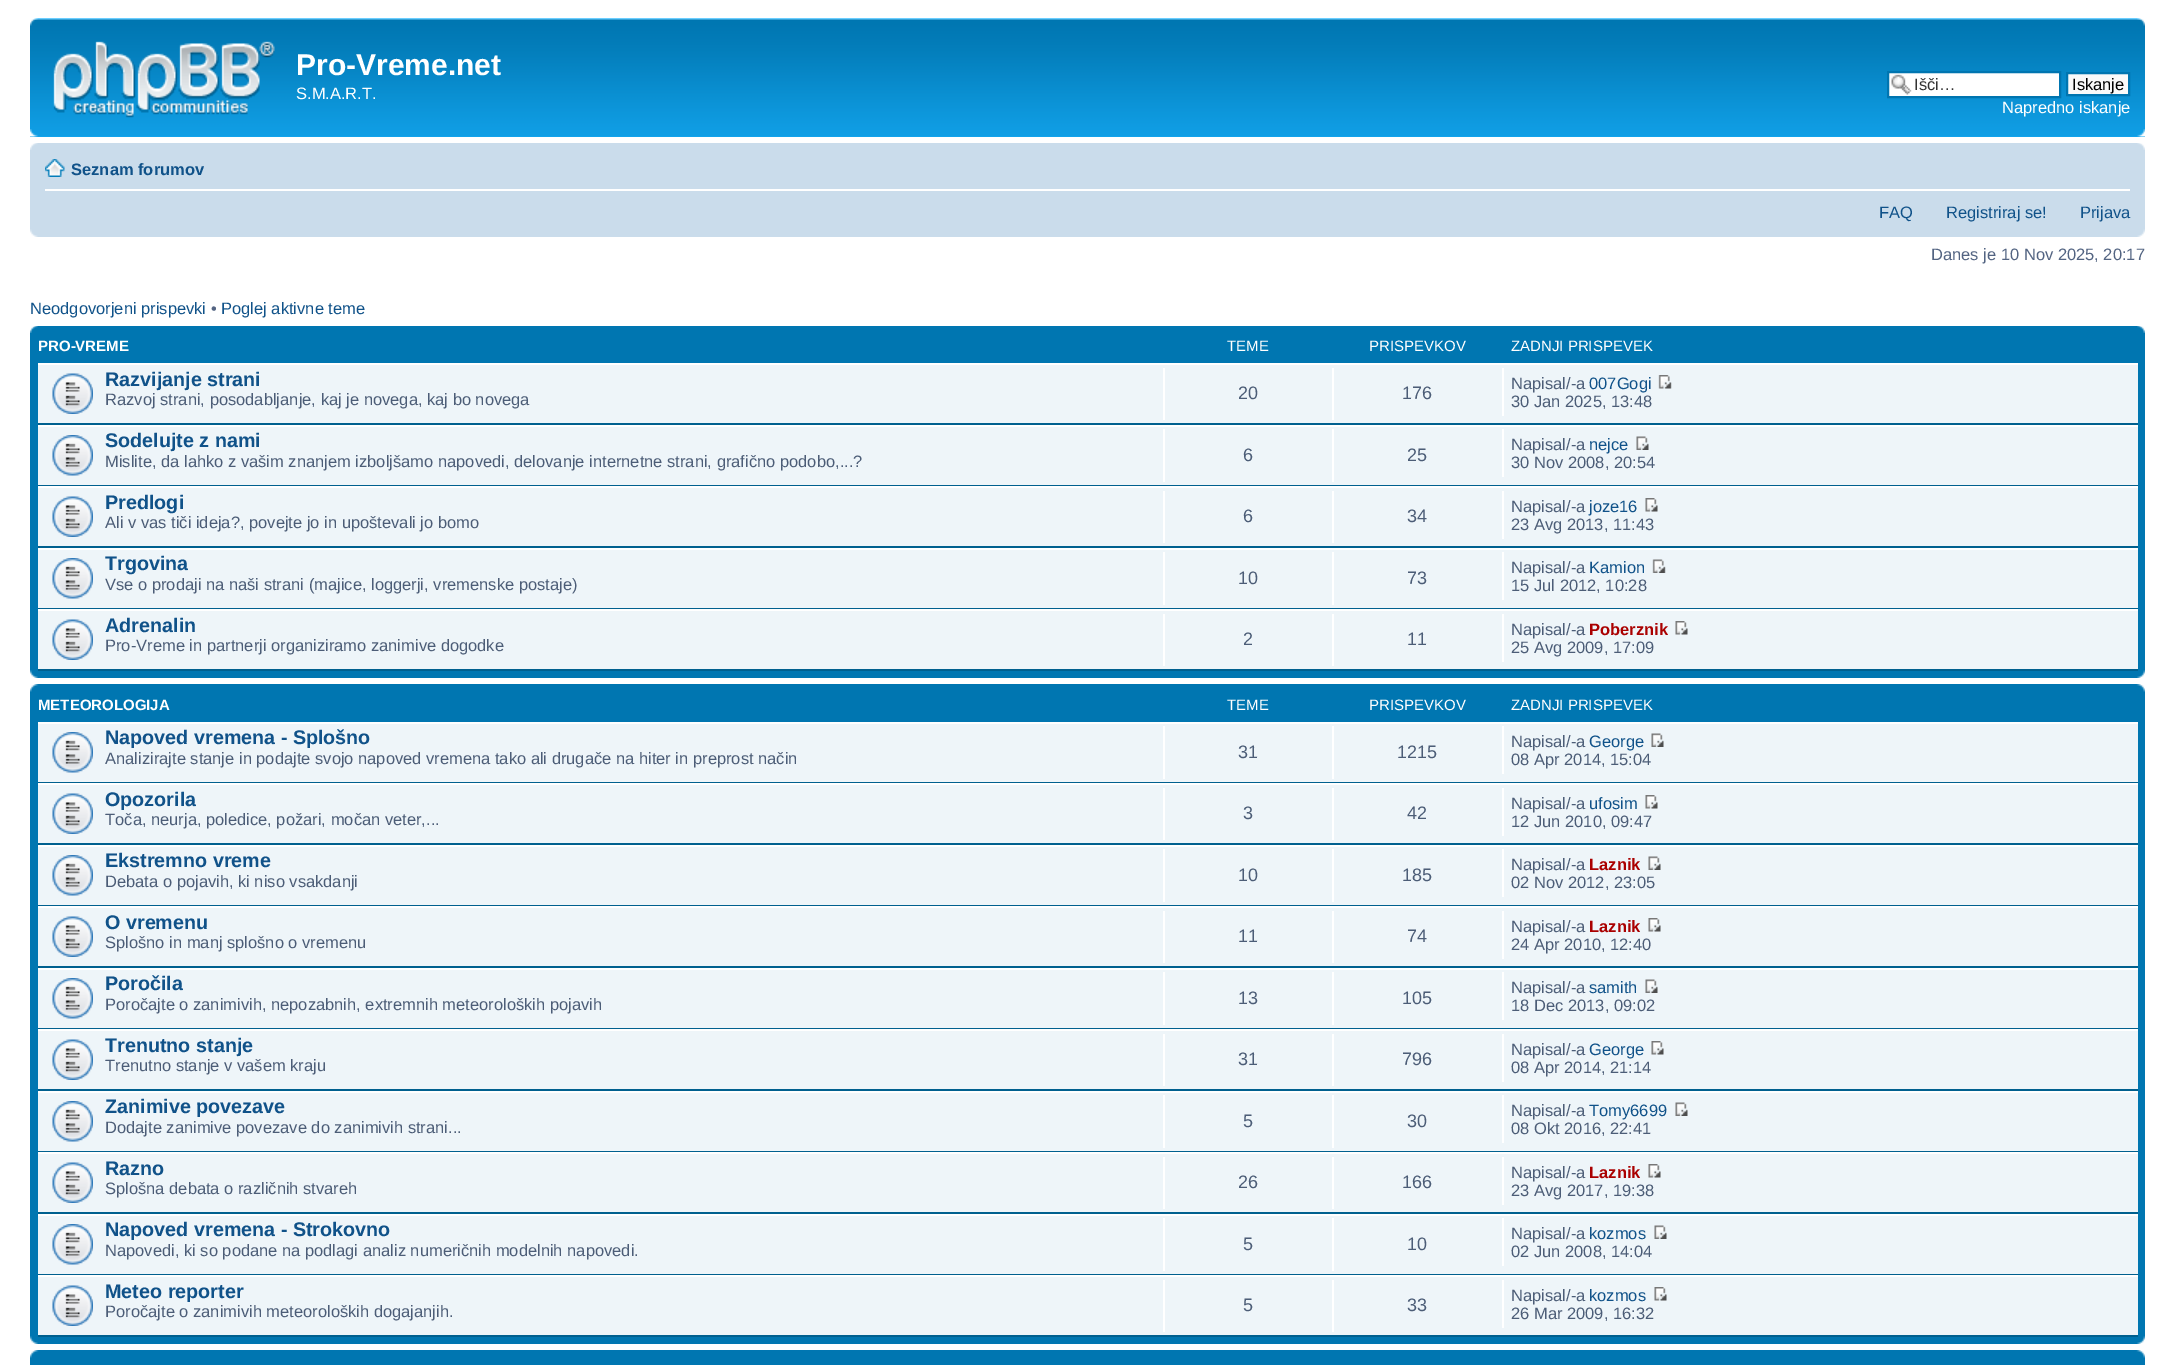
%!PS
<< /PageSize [2175 1365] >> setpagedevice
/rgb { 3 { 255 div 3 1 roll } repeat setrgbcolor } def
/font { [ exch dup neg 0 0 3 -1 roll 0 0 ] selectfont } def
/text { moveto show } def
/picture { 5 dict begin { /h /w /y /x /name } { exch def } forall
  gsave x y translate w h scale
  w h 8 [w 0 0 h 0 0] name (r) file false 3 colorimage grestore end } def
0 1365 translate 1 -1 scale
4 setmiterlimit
255 255 255 rgb
0 0 2175 1365 rectfill
18 163 235 rgb
30 136 2115 1 rectfill
(img_01.rgb) 30 18 2115 118 picture
(img_02.rgb) 30 18 8 8 picture
(img_03.rgb) 2137 18 8 8 picture
(img_04.rgb) 53 41 222 77 picture
255 255 255 rgb
1889 73 170 23 rectfill
(img_05.rgb) 1891 74 21 21 picture
0 117 176 rgb
2 setlinewidth
1888 72 172 25 rectstroke
250 250 250 rgb
2067 73 moveto 62 0 rlineto 0 22 rlineto -62 0 rlineto closepath gsave fill grestore
0 117 176 rgb
stroke
(img_06.rgb) 30 129 8 8 picture
(img_07.rgb) 2137 129 8 8 picture
202 220 235 rgb
30 143 2115 94 rectfill
(img_08.rgb) 30 143 8 7 picture
(img_09.rgb) 2137 143 8 7 picture
255 255 255 rgb
45 189 2085 2 rectfill
(img_10.rgb) 45 159 20 18 picture
(img_11.rgb) 30 229 8 8 picture
(img_12.rgb) 2137 229 8 8 picture
0 118 177 rgb
30 326 2115 352 rectfill
(img_13.rgb) 30 326 8 7 picture
(img_14.rgb) 2137 326 8 7 picture
238 245 249 rgb
38 365 2100 304 rectfill
255 255 255 rgb
38 363 2100 2 rectfill
0 96 143 rgb
38 423 2100 2 rectfill
(img_15.rgb) 52 373 41 41 picture
255 255 255 rgb
1163 368 2 52 rectfill
1332 368 2 52 rectfill
1502 368 2 48 rectfill
(img_16.rgb) 1658 375 14 14 picture
38 425 2100 2 rectfill
0 96 143 rgb
38 485 2100 1 rectfill
(img_17.rgb) 52 435 41 41 picture
255 255 255 rgb
1163 429 2 53 rectfill
1332 429 2 53 rectfill
1502 429 2 48 rectfill
(img_18.rgb) 1636 436 13 14 picture
38 486 2100 2 rectfill
0 96 143 rgb
38 546 2100 2 rectfill
(img_15.rgb) 52 496 41 41 picture
255 255 255 rgb
1163 491 2 52 rectfill
1332 491 2 52 rectfill
1502 491 2 48 rectfill
(img_19.rgb) 1645 498 13 14 picture
38 548 2100 2 rectfill
0 96 143 rgb
38 608 2100 1 rectfill
(img_17.rgb) 52 558 41 41 picture
255 255 255 rgb
1163 552 2 53 rectfill
1332 552 2 53 rectfill
1502 552 2 48 rectfill
(img_20.rgb) 1652 559 14 14 picture
38 609 2100 2 rectfill
0 96 143 rgb
38 669 2100 2 rectfill
(img_15.rgb) 52 619 41 41 picture
255 255 255 rgb
1163 614 2 52 rectfill
1332 614 2 52 rectfill
1502 614 2 48 rectfill
(img_19.rgb) 1675 621 13 14 picture
(img_21.rgb) 30 670 8 8 picture
(img_22.rgb) 2137 670 8 8 picture
0 118 177 rgb
30 684 2115 660 rectfill
(img_23.rgb) 30 684 9 8 picture
(img_24.rgb) 2136 684 9 8 picture
238 245 249 rgb
38 724 2100 611 rectfill
255 255 255 rgb
38 722 2100 2 rectfill
0 96 143 rgb
38 782 2100 1 rectfill
(img_17.rgb) 52 732 41 41 picture
255 255 255 rgb
1163 726 2 53 rectfill
1332 726 2 53 rectfill
1502 726 2 48 rectfill
(img_18.rgb) 1651 733 13 14 picture
38 783 2100 2 rectfill
0 96 143 rgb
38 843 2100 2 rectfill
(img_15.rgb) 52 793 41 41 picture
255 255 255 rgb
1163 788 2 52 rectfill
1332 788 2 52 rectfill
1502 788 2 48 rectfill
(img_19.rgb) 1645 795 13 14 picture
38 845 2100 2 rectfill
0 96 143 rgb
38 905 2100 1 rectfill
(img_17.rgb) 52 855 41 41 picture
255 255 255 rgb
1163 849 2 53 rectfill
1332 849 2 53 rectfill
1502 849 2 48 rectfill
(img_18.rgb) 1648 856 13 14 picture
38 906 2100 2 rectfill
0 96 143 rgb
38 966 2100 2 rectfill
(img_15.rgb) 52 916 41 41 picture
255 255 255 rgb
1163 911 2 52 rectfill
1332 911 2 52 rectfill
1502 911 2 48 rectfill
(img_19.rgb) 1648 918 13 14 picture
38 968 2100 2 rectfill
0 96 143 rgb
38 1028 2100 1 rectfill
(img_17.rgb) 52 978 41 41 picture
255 255 255 rgb
1163 972 2 53 rectfill
1332 972 2 53 rectfill
1502 972 2 48 rectfill
(img_18.rgb) 1645 979 13 14 picture
38 1029 2100 2 rectfill
0 96 143 rgb
38 1089 2100 2 rectfill
(img_15.rgb) 52 1039 41 41 picture
255 255 255 rgb
1163 1034 2 52 rectfill
1332 1034 2 52 rectfill
1502 1034 2 48 rectfill
(img_19.rgb) 1651 1041 13 14 picture
38 1091 2100 2 rectfill
0 96 143 rgb
38 1151 2100 1 rectfill
(img_17.rgb) 52 1101 41 41 picture
255 255 255 rgb
1163 1095 2 53 rectfill
1332 1095 2 53 rectfill
1502 1095 2 48 rectfill
(img_18.rgb) 1675 1102 13 14 picture
38 1152 2100 2 rectfill
0 96 143 rgb
38 1212 2100 2 rectfill
(img_15.rgb) 52 1162 41 41 picture
255 255 255 rgb
1163 1157 2 52 rectfill
1332 1157 2 52 rectfill
1502 1157 2 48 rectfill
(img_19.rgb) 1648 1164 13 14 picture
38 1214 2100 2 rectfill
0 96 143 rgb
38 1274 2100 1 rectfill
(img_17.rgb) 52 1224 41 41 picture
255 255 255 rgb
1163 1218 2 53 rectfill
1332 1218 2 53 rectfill
1502 1218 2 48 rectfill
(img_18.rgb) 1654 1225 13 14 picture
38 1275 2100 2 rectfill
0 96 143 rgb
38 1335 2100 2 rectfill
(img_15.rgb) 52 1285 41 41 picture
255 255 255 rgb
1163 1280 2 52 rectfill
1332 1280 2 52 rectfill
1502 1280 2 48 rectfill
(img_19.rgb) 1654 1287 13 14 picture
(img_21.rgb) 30 1336 8 8 picture
(img_22.rgb) 2137 1336 8 8 picture
0 118 177 rgb
30 1350 2115 15 rectfill
(img_23.rgb) 30 1350 9 8 picture
(img_24.rgb) 2136 1350 9 8 picture
/LiberationSans-Bold 30 font
255 255 255 rgb
(Pro-Vreme.net) 296 75 text
/LiberationSans-Regular 16.5 font
(S.M.A.R.T.) 296 99 text
51 51 51 rgb
(Išči…) 1914 90 text
0 0 0 rgb
(Iskanje) 2072 90 text
255 255 255 rgb
(Napredno iskanje) 2002 113 text
/LiberationSans-Bold 16.5 font
16 82 137 rgb
(Seznam forumov) 71 175 text
/LiberationSans-Regular 16.5 font
(FAQ) 1879 218 text
(Registriraj se!) 1946 218 text
(Prijava) 2080 218 text
83 100 130 rgb
(Danes je 10 Nov 2025, 20:17) 1931 260 text
16 82 137 rgb
(Neodgovorjeni prispevki) 30 314 text
83 100 130 rgb
(•) 211 314 text
16 82 137 rgb
(Poglej aktivne teme) 221 314 text
/LiberationSans-Bold 15 font
255 255 255 rgb
(PRO-VREME) 38 351 text
/LiberationSans-Regular 15 font
(TEME) 1227 351 text
(PRISPEVKOV) 1369 351 text
(ZADNJI PRISPEVEK) 1511 351 text
/LiberationSans-Bold 19.75 font
16 82 137 rgb
(Razvijanje strani) 105 386 text
/LiberationSans-Regular 16.5 font
76 93 119 rgb
(Razvoj strani, posodabljanje, kaj je novega, kaj bo novega) 105 405 text
/LiberationSans-Regular 18 font
(20) 1238 399 text
(176) 1402 399 text
/LiberationSans-Regular 16.5 font
(Napisal/-a) 1511 389 text
16 82 137 rgb
(007Gogi) 1589 389 text
76 93 119 rgb
(30 Jan 2025, 13:48) 1511 407 text
/LiberationSans-Bold 19.75 font
16 82 137 rgb
(Sodelujte z nami) 105 447 text
/LiberationSans-Regular 16.5 font
76 93 119 rgb
(Mislite, da lahko z vašim znanjem izboljšamo napovedi, delovanje internetne strani, grafično podobo,...?) 105 467 text
/LiberationSans-Regular 18 font
(6) 1243 461 text
(25) 1407 461 text
/LiberationSans-Regular 16.5 font
(Napisal/-a) 1511 450 text
16 82 137 rgb
(nejce) 1589 450 text
76 93 119 rgb
(30 Nov 2008, 20:54) 1511 468 text
/LiberationSans-Bold 19.75 font
16 82 137 rgb
(Predlogi) 105 509 text
/LiberationSans-Regular 16.5 font
76 93 119 rgb
(Ali v vas tiči ideja?, povejte jo in upoštevali jo bomo) 105 528 text
/LiberationSans-Regular 18 font
(6) 1243 522 text
(34) 1407 522 text
/LiberationSans-Regular 16.5 font
(Napisal/-a) 1511 512 text
16 82 137 rgb
(joze16) 1589 512 text
76 93 119 rgb
(23 Avg 2013, 11:43) 1511 530 text
/LiberationSans-Bold 19.75 font
16 82 137 rgb
(Trgovina) 105 570 text
/LiberationSans-Regular 16.5 font
76 93 119 rgb
(Vse o prodaji na naši strani \(majice, loggerji, vremenske postaje\)) 105 590 text
/LiberationSans-Regular 18 font
(10) 1238 584 text
(73) 1407 584 text
/LiberationSans-Regular 16.5 font
(Napisal/-a) 1511 573 text
16 82 137 rgb
(Kamion) 1589 573 text
76 93 119 rgb
(15 Jul 2012, 10:28) 1511 591 text
/LiberationSans-Bold 19.75 font
16 82 137 rgb
(Adrenalin) 105 632 text
/LiberationSans-Regular 16.5 font
76 93 119 rgb
(Pro-Vreme in partnerji organiziramo zanimive dogodke) 105 651 text
/LiberationSans-Regular 18 font
(2) 1243 645 text
(11) 1407 645 text
/LiberationSans-Regular 16.5 font
(Napisal/-a) 1511 635 text
/LiberationSans-Bold 16.5 font
170 0 0 rgb
(Poberznik) 1589 635 text
/LiberationSans-Regular 16.5 font
76 93 119 rgb
(25 Avg 2009, 17:09) 1511 653 text
/LiberationSans-Bold 15 font
255 255 255 rgb
(METEOROLOGIJA) 38 710 text
/LiberationSans-Regular 15 font
(TEME) 1227 710 text
(PRISPEVKOV) 1369 710 text
(ZADNJI PRISPEVEK) 1511 710 text
/LiberationSans-Bold 19.75 font
16 82 137 rgb
(Napoved vremena - Splošno) 105 744 text
/LiberationSans-Regular 16.5 font
76 93 119 rgb
(Analizirajte stanje in podajte svojo napoved vremena tako ali drugače na hiter in preprost način) 105 764 text
/LiberationSans-Regular 18 font
(31) 1238 758 text
(1215) 1397 758 text
/LiberationSans-Regular 16.5 font
(Napisal/-a) 1511 747 text
16 82 137 rgb
(George) 1589 747 text
76 93 119 rgb
(08 Apr 2014, 15:04) 1511 765 text
/LiberationSans-Bold 19.75 font
16 82 137 rgb
(Opozorila) 105 806 text
/LiberationSans-Regular 16.5 font
76 93 119 rgb
(Toča, neurja, poledice, požari, močan veter,...) 105 825 text
/LiberationSans-Regular 18 font
(3) 1243 819 text
(42) 1407 819 text
/LiberationSans-Regular 16.5 font
(Napisal/-a) 1511 809 text
16 82 137 rgb
(ufosim) 1589 809 text
76 93 119 rgb
(12 Jun 2010, 09:47) 1511 827 text
/LiberationSans-Bold 19.75 font
16 82 137 rgb
(Ekstremno vreme) 105 867 text
/LiberationSans-Regular 16.5 font
76 93 119 rgb
(Debata o pojavih, ki niso vsakdanji) 105 887 text
/LiberationSans-Regular 18 font
(10) 1238 881 text
(185) 1402 881 text
/LiberationSans-Regular 16.5 font
(Napisal/-a) 1511 870 text
/LiberationSans-Bold 16.5 font
170 0 0 rgb
(Laznik) 1589 870 text
/LiberationSans-Regular 16.5 font
76 93 119 rgb
(02 Nov 2012, 23:05) 1511 888 text
/LiberationSans-Bold 19.75 font
16 82 137 rgb
(O vremenu) 105 929 text
/LiberationSans-Regular 16.5 font
76 93 119 rgb
(Splošno in manj splošno o vremenu) 105 948 text
/LiberationSans-Regular 18 font
(11) 1238 942 text
(74) 1407 942 text
/LiberationSans-Regular 16.5 font
(Napisal/-a) 1511 932 text
/LiberationSans-Bold 16.5 font
170 0 0 rgb
(Laznik) 1589 932 text
/LiberationSans-Regular 16.5 font
76 93 119 rgb
(24 Apr 2010, 12:40) 1511 950 text
/LiberationSans-Bold 19.75 font
16 82 137 rgb
(Poročila) 105 990 text
/LiberationSans-Regular 16.5 font
76 93 119 rgb
(Poročajte o zanimivih, nepozabnih, extremnih meteoroloških pojavih) 105 1010 text
/LiberationSans-Regular 18 font
(13) 1238 1004 text
(105) 1402 1004 text
/LiberationSans-Regular 16.5 font
(Napisal/-a) 1511 993 text
16 82 137 rgb
(samith) 1589 993 text
76 93 119 rgb
(18 Dec 2013, 09:02) 1511 1011 text
/LiberationSans-Bold 19.75 font
16 82 137 rgb
(Trenutno stanje) 105 1052 text
/LiberationSans-Regular 16.5 font
76 93 119 rgb
(Trenutno stanje v vašem kraju) 105 1071 text
/LiberationSans-Regular 18 font
(31) 1238 1065 text
(796) 1402 1065 text
/LiberationSans-Regular 16.5 font
(Napisal/-a) 1511 1055 text
16 82 137 rgb
(George) 1589 1055 text
76 93 119 rgb
(08 Apr 2014, 21:14) 1511 1073 text
/LiberationSans-Bold 19.75 font
16 82 137 rgb
(Zanimive povezave) 105 1113 text
/LiberationSans-Regular 16.5 font
76 93 119 rgb
(Dodajte zanimive povezave do zanimivih strani...) 105 1133 text
/LiberationSans-Regular 18 font
(5) 1243 1127 text
(30) 1407 1127 text
/LiberationSans-Regular 16.5 font
(Napisal/-a) 1511 1116 text
16 82 137 rgb
(Tomy6699) 1589 1116 text
76 93 119 rgb
(08 Okt 2016, 22:41) 1511 1134 text
/LiberationSans-Bold 19.75 font
16 82 137 rgb
(Razno) 105 1175 text
/LiberationSans-Regular 16.5 font
76 93 119 rgb
(Splošna debata o različnih stvareh) 105 1194 text
/LiberationSans-Regular 18 font
(26) 1238 1188 text
(166) 1402 1188 text
/LiberationSans-Regular 16.5 font
(Napisal/-a) 1511 1178 text
/LiberationSans-Bold 16.5 font
170 0 0 rgb
(Laznik) 1589 1178 text
/LiberationSans-Regular 16.5 font
76 93 119 rgb
(23 Avg 2017, 19:38) 1511 1196 text
/LiberationSans-Bold 19.75 font
16 82 137 rgb
(Napoved vremena - Strokovno) 105 1236 text
/LiberationSans-Regular 16.5 font
76 93 119 rgb
(Napovedi, ki so podane na podlagi analiz numeričnih modelnih napovedi.) 105 1256 text
/LiberationSans-Regular 18 font
(5) 1243 1250 text
(10) 1407 1250 text
/LiberationSans-Regular 16.5 font
(Napisal/-a) 1511 1239 text
16 82 137 rgb
(kozmos) 1589 1239 text
76 93 119 rgb
(02 Jun 2008, 14:04) 1511 1257 text
/LiberationSans-Bold 19.75 font
16 82 137 rgb
(Meteo reporter) 105 1298 text
/LiberationSans-Regular 16.5 font
76 93 119 rgb
(Poročajte o zanimivih meteoroloških dogajanjih.) 105 1317 text
/LiberationSans-Regular 18 font
(5) 1243 1311 text
(33) 1407 1311 text
/LiberationSans-Regular 16.5 font
(Napisal/-a) 1511 1301 text
16 82 137 rgb
(kozmos) 1589 1301 text
76 93 119 rgb
(26 Mar 2009, 16:32) 1511 1319 text
showpage
